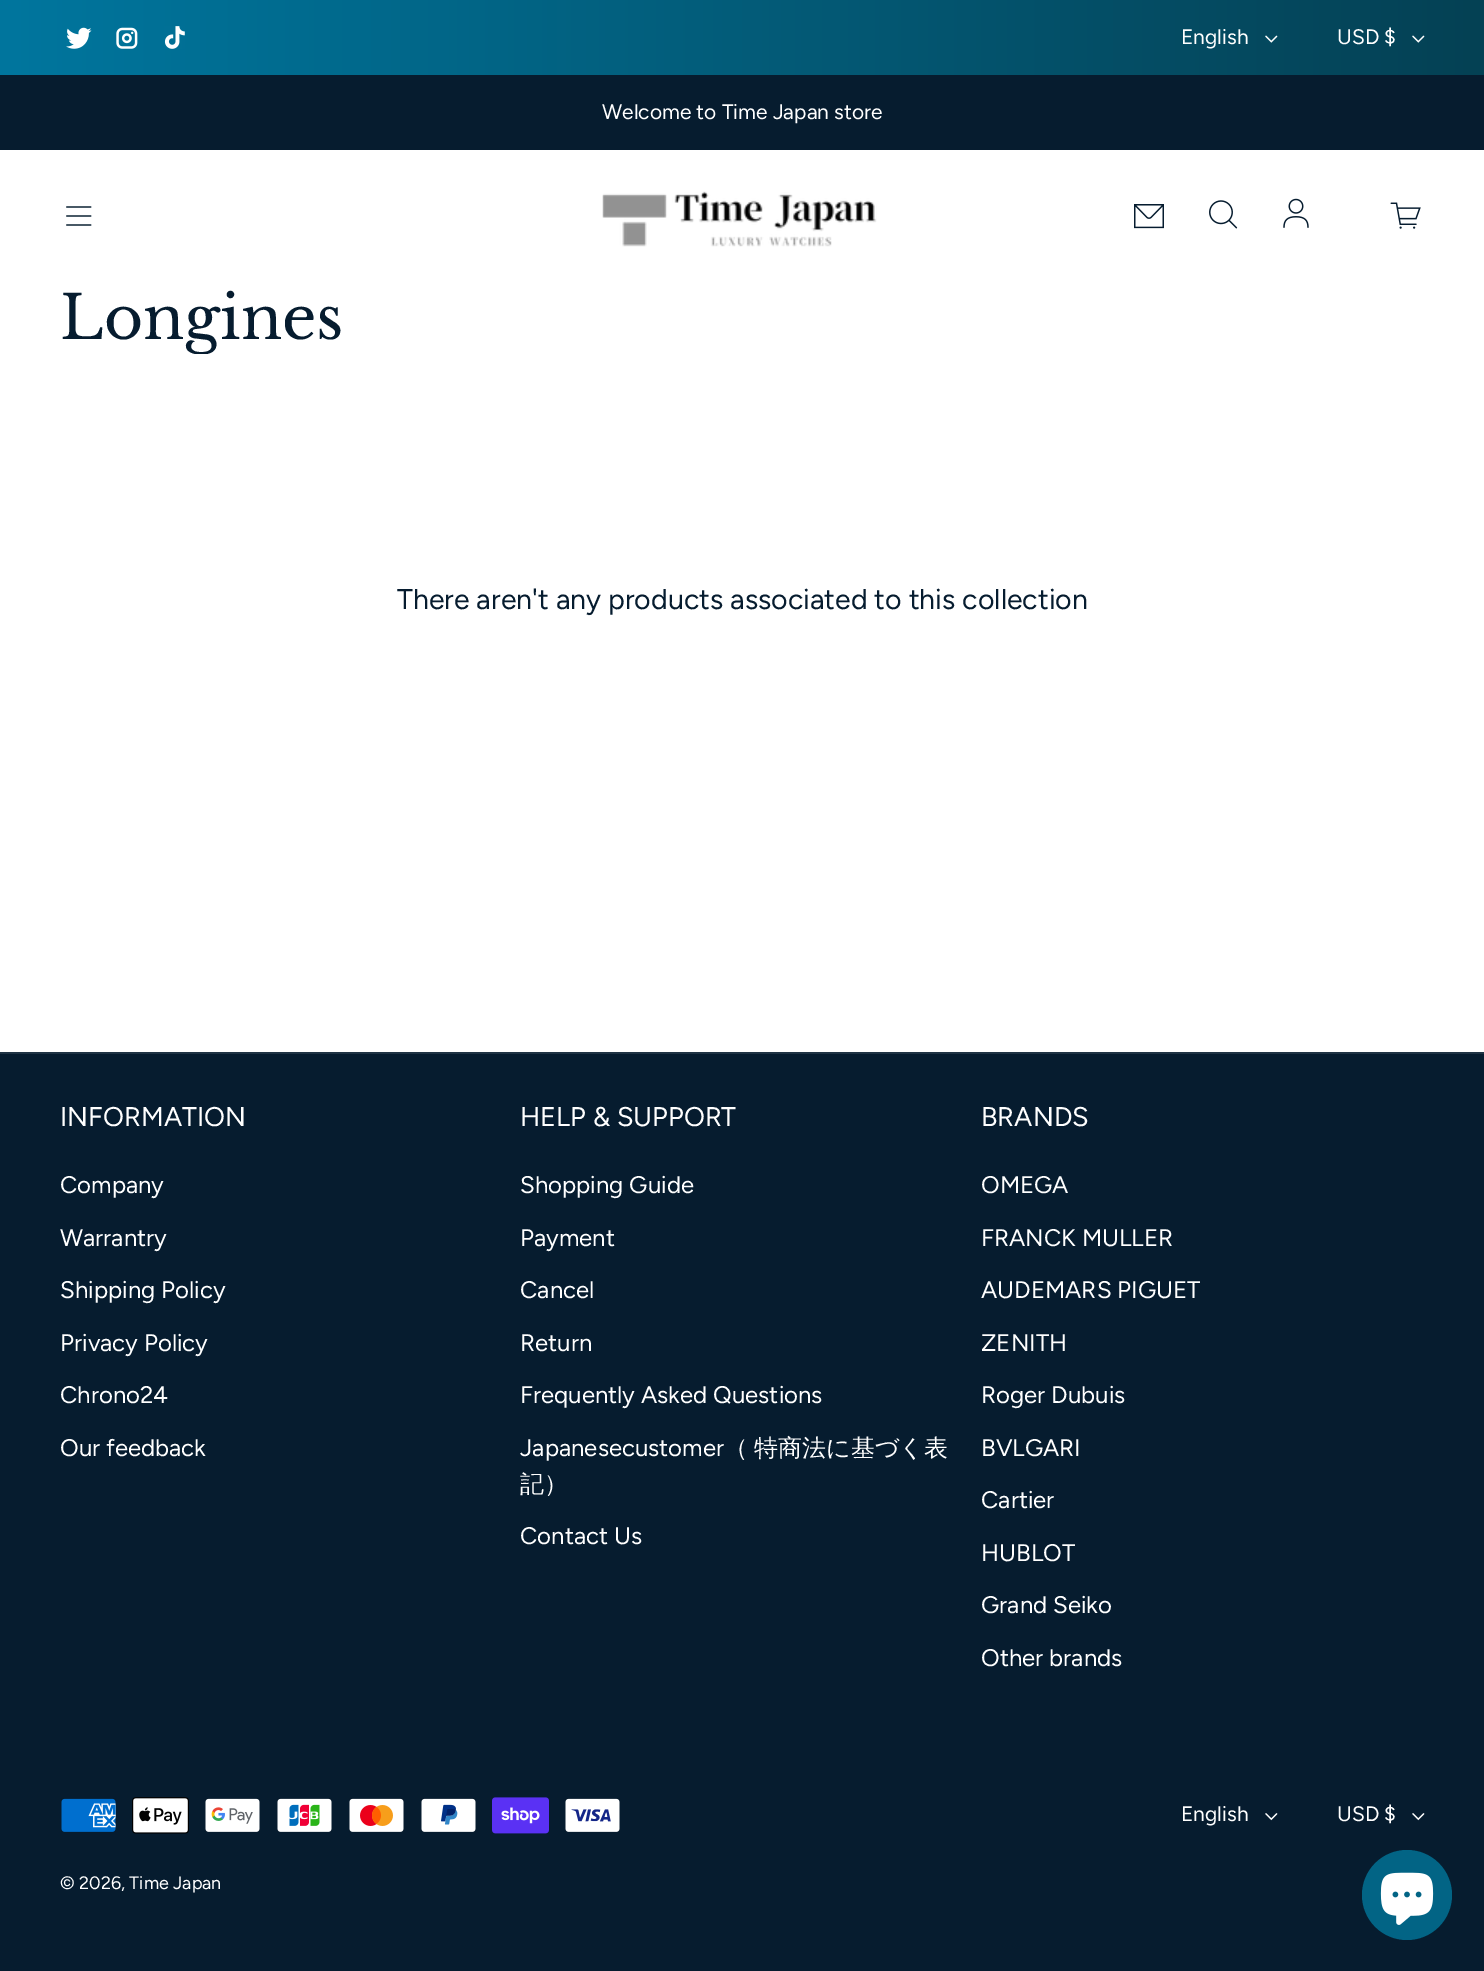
%!PS
<< /PageSize [1484 1971] >> setpagedevice
/rgb { 3 { 255 div 3 1 roll } repeat setrgbcolor } def
/font { [ exch dup neg 0 0 3 -1 roll 0 0 ] selectfont } def
/text { moveto show } def
/circle { newpath 0 360 arc closepath } def
/picture { 5 dict begin { /h /w /y /x /name } { exch def } forall
  gsave x y translate w h scale
  w h 8 [w 0 0 h 0 0] name (r) file false 3 colorimage grestore end } def
0 1971 translate 1 -1 scale
4 setmiterlimit
255 255 255 rgb
0 0 1484 1971 rectfill
gsave 0 0 moveto 1484 0 rlineto 0 75 rlineto -1484 0 rlineto closepath clip newpath
<< /ShadingType 2 /ColorSpace /DeviceRGB /Coords [0 986 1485 986] /Extend [true true] /Function << /FunctionType 2 /Domain [0 1] /C0 [0 0.463 0.62] /C1 [0.02 0.255 0.329] /N 1 >> >> shfill grestore
(img_01.rgb) 66 27 26 22 picture
(img_02.rgb) 116 27 22 22 picture
(img_03.rgb) 164 26 21 23 picture
(img_04.rgb) 1265 35 13 8 picture
(img_05.rgb) 1412 35 13 8 picture
6 28 47 rgb
0 75 1484 75 rectfill
(img_06.rgb) 66 206 26 20 picture
(img_07.rgb) 602 191 275 56 picture
(img_08.rgb) 1134 204 30 25 picture
(img_09.rgb) 1209 200 29 29 picture
(img_10.rgb) 1283 198 26 30 picture
(img_11.rgb) 1390 202 31 27 picture
0 1054 1484 917 rectfill
31 51 68 rgb
0 1052 1484 2 rectfill
(img_12.rgb) 61 1798 55 34 picture
(img_13.rgb) 132 1797 57 37 picture
(img_14.rgb) 205 1798 55 34 picture
(img_15.rgb) 277 1798 55 34 picture
(img_16.rgb) 349 1798 55 34 picture
(img_17.rgb) 421 1798 55 34 picture
(img_18.rgb) 492 1797 57 37 picture
(img_19.rgb) 565 1798 55 34 picture
(img_20.rgb) 1265 1813 13 8 picture
(img_20.rgb) 1412 1813 13 8 picture
2 100 133 rgb
1407 1895 45 circle fill
(img_21.rgb) 1380 1872 54 53 picture
/Figtree-Regular 21 font
255 255 255 rgb
(English) 1181 44 text
(USD $) 1337 44 text
(Welcome to Time Japan store) 602 119 text
/LibreBaskerville-Regular 60 font
6 28 47 rgb
(Longines) 60 339 text
255 255 255 rgb
195 354 13 1 rectfill
/Figtree-Regular 28.5 font
6 28 47 rgb
(There aren't any products associated to this collection) 397 609 text
/Figtree-Regular 27 font
255 255 255 rgb
(INFORMATION) 60 1126 text
/Figtree-Regular 24 font
(Company) 60 1193 text
(Warrantry) 60 1246 text
(Shipping Policy) 60 1298 text
(Privacy Policy) 60 1351 text
(Chrono24) 60 1403 text
(Our feedback) 60 1456 text
/Figtree-Regular 27 font
(HELP & SUPPORT) 520 1126 text
/Figtree-Regular 24 font
(Shopping Guide) 520 1193 text
(Payment) 520 1246 text
(Cancel) 520 1298 text
(Return) 520 1351 text
(Frequently Asked Questions) 520 1403 text
(Japanesecustomer) 520 1456 text
/WenQuanYiZenHei-Medium 24 font
724 1456 moveto -1 0 32 (（ 特商法に基づく表) widthshow
(記）) 520 1492 text
/Figtree-Regular 24 font
(Contact Us) 520 1544 text
/Figtree-Regular 27 font
(BRANDS) 981 1126 text
/Figtree-Regular 24 font
(OMEGA) 981 1193 text
(FRANCK MULLER) 981 1246 text
(AUDEMARS PIGUET) 981 1298 text
(ZENITH) 981 1351 text
(Roger Dubuis) 981 1403 text
(BVLGARI) 981 1456 text
(Cartier) 981 1508 text
(HUBLOT) 981 1561 text
(Grand Seiko) 981 1613 text
(Other brands) 981 1666 text
/Figtree-Regular 21 font
(English) 1181 1821 text
(USD $) 1337 1821 text
/Figtree-Regular 18 font
(© 2026, Time Japan) 60 1889 text
showpage
